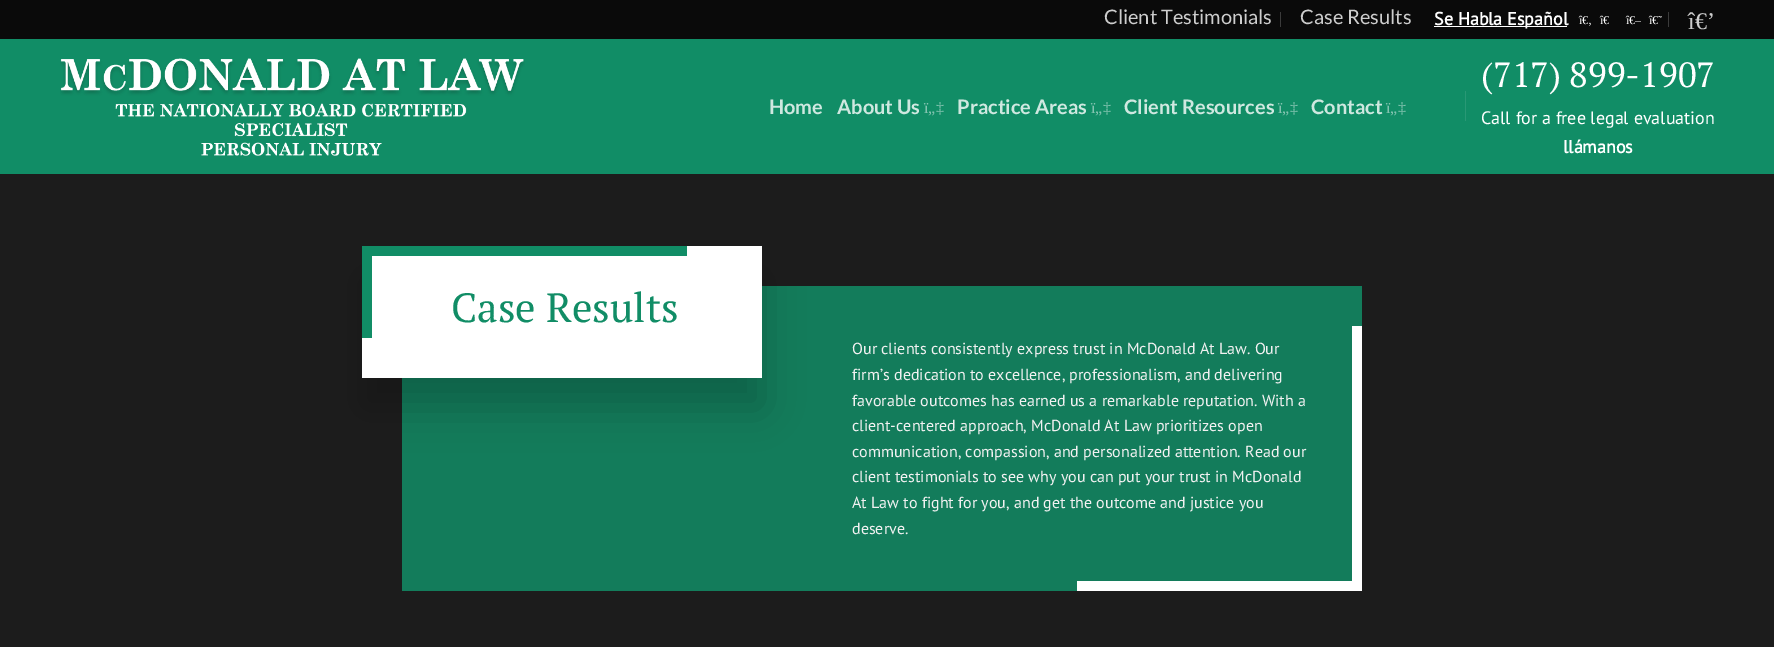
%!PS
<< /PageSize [1774 647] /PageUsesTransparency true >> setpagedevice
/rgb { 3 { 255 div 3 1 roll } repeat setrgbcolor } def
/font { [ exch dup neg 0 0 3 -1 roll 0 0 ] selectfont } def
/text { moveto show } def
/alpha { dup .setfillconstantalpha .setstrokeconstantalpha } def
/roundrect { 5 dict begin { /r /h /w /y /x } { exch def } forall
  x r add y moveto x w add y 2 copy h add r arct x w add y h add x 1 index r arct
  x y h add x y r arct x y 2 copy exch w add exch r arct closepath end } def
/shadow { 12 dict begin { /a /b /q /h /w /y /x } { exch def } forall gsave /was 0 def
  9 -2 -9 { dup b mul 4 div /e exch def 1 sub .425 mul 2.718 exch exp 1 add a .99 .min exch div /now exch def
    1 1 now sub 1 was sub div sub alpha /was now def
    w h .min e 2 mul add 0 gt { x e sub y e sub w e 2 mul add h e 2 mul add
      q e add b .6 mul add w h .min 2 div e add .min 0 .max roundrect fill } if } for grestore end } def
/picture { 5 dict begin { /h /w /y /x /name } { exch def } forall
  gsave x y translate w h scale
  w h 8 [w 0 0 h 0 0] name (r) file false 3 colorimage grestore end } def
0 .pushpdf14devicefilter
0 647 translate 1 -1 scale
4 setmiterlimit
28 28 28 rgb
0 0 1774 647 rectfill
10 10 10 rgb
0 0 1774 39 rectfill
59 59 59 rgb
1280 12 1 15 rectfill
255 255 255 rgb
1434 26 133 1 rectfill
59 59 59 rgb
1668 12 1 15 rectfill
17 141 102 rgb
0 39 1774 135 rectfill
(img_01.rgb) 60 58 465 98 picture
41 152 117 rgb
1465 91 1 30 rectfill
19 124 91 rgb
402 286 960 305 rectfill
0 0 0 rgb
362 276 400 132 0 20 0.2 shadow
255 255 255 rgb
362 246 400 132 rectfill
17 141 102 rgb
372 246 315 10 rectfill
362 246 10 92 rectfill
255 255 255 rgb
1352 326 10 255 rectfill
1077 581 285 10 rectfill
/Lato-Regular 20 font
206 206 206 rgb
(Client Testimonials) 1104 24 text
(Case Results) 1300 24 text
/PTSans-Bold 18 font
255 255 255 rgb
(Se Habla Español) 1434 25 text
/LiberationSerif-Regular 12 font
(î€‚) 1579 24 text
(î€) 1600 24 text
(î€–) 1626 24 text
(î€˜) 1649 24 text
/LiberationSerif-Regular 24 font
206 206 206 rgb
(î€’) 1688 29 text
/Lato-Bold 20 font
207 232 224 rgb
(Home) 769 114 text
(About Us) 837 114 text
/LiberationSerif-Regular 16 font
131 195 176 rgb
(ï„‡) 924 113 text
/Lato-Bold 20 font
207 232 224 rgb
(Practice Areas) 957 114 text
/LiberationSerif-Regular 16 font
131 195 176 rgb
(ï„‡) 1091 113 text
/Lato-Bold 20 font
207 232 224 rgb
(Client Resources) 1124 114 text
/LiberationSerif-Regular 16 font
131 195 176 rgb
(ï„‡) 1278 113 text
/Lato-Bold 20 font
207 232 224 rgb
(Contact) 1311 114 text
/LiberationSerif-Regular 16 font
131 195 176 rgb
(ï„‡) 1386 113 text
/PTSerif-Regular 35 font
255 255 255 rgb
(\(717\) 899-1907) 1481 87 text
/PTSans-Regular 18 font
(Call for a free legal evaluation) 1481 124 text
/PTSans-Bold 18 font
(llámanos) 1563 153 text
/PTSerif-Regular 40.75 font
17 141 102 rgb
(Case Results) 451 322 text
/PTSans-Regular 16 font
241 241 241 rgb
(Our clients consistently express trust in McDonald At Law. Our) 852 354 text
(firm’s dedication to excellence, professionalism, and delivering) 852 380 text
(favorable outcomes has earned us a remarkable reputation. With a) 852 406 text
(client-centered approach, McDonald At Law prioritizes open) 852 431 text
(communication, compassion, and personalized attention. Read our) 852 457 text
(client testimonials to see why you can put your trust in McDonald) 852 482 text
(At Law to fight for you, and get the outcome and justice you) 852 508 text
(deserve.) 852 534 text
.poppdf14devicefilter showpage
